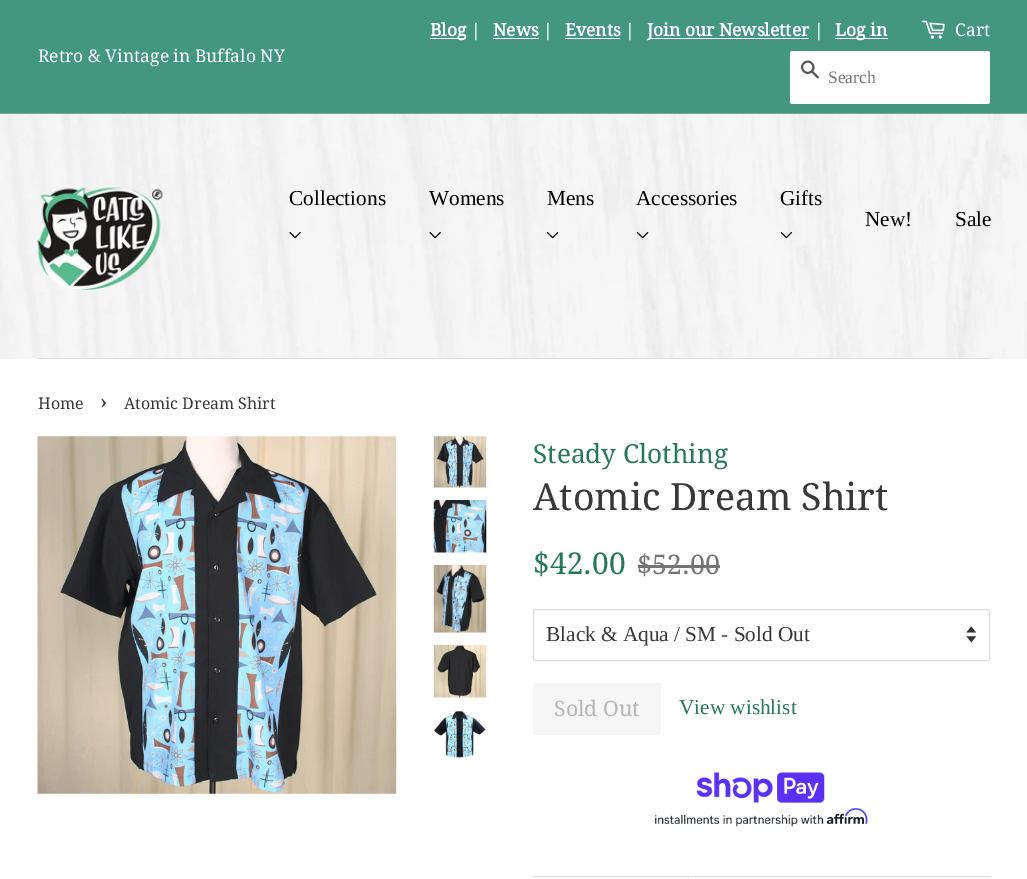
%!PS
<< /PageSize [1027 879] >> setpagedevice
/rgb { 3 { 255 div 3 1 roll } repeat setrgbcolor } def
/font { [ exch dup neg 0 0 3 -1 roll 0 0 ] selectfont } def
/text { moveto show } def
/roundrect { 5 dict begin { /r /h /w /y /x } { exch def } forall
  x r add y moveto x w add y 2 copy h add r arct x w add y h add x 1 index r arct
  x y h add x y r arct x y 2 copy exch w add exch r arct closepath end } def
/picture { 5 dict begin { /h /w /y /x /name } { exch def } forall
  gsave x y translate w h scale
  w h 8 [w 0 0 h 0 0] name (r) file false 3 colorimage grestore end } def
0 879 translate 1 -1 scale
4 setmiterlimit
255 255 255 rgb
0 0 1027 879 rectfill
66 151 126 rgb
0 0 1027 114 rectfill
255 255 255 rgb
430 38 36 1 rectfill
493 38 46 1 rectfill
565 38 55 1 rectfill
648 38 161 1 rectfill
835 38 53 1 rectfill
(img_01.rgb) 921 20 24 19 picture
790 51 200 53 2.5 roundrect fill
(img_02.rgb) 801 60 18 19 picture
(img_03.rgb) 0 113 1027 246 picture
222 222 222 rgb
38 358 952 1 rectfill
(img_04.rgb) 37 187 126 103 picture
(img_05.rgb) 289 232 12 7 picture
(img_06.rgb) 429 232 12 7 picture
(img_07.rgb) 546 232 13 7 picture
(img_08.rgb) 636 232 13 7 picture
(img_09.rgb) 780 232 13 7 picture
(img_10.rgb) 37 436 360 358 picture
(img_11.rgb) 433 436 54 52 picture
(img_12.rgb) 433 500 54 53 picture
(img_13.rgb) 433 565 54 68 picture
(img_14.rgb) 433 645 54 53 picture
(img_15.rgb) 434 710 52 48 picture
(img_16.rgb) 966 626 10 17 picture
533.5 609.5 456 51 2 roundrect stroke
246 246 246 rgb
533 683 128 52 2.5 roundrect fill
(img_17.rgb) 655 772 213 55 picture
222 222 222 rgb
533 876 457 1 rectfill
688 878 1 1 rectfill
/DroidSerif-Regular 17.5 font
255 255 255 rgb
(Retro & Vintage in Buffalo NY) 38 62 text
/DroidSerif-Bold 17.5 font
(Blog) 430 36 text
/DroidSerif-Regular 17.5 font
(|) 471 36 text
/DroidSerif-Bold 17.5 font
(News) 493 36 text
/DroidSerif-Regular 17.5 font
(|) 543 36 text
/DroidSerif-Bold 17.5 font
(Events) 565 36 text
/DroidSerif-Regular 17.5 font
(|) 625 36 text
/DroidSerif-Bold 17.5 font
(Join our Newsletter) 647 36 text
/DroidSerif-Regular 17.5 font
(|) 814 36 text
/DroidSerif-Bold 17.5 font
(Log in) 835 36 text
/DroidSerif-Regular 17.5 font
(Cart) 955 36 text
/LiberationSerif-Regular 17.5 font
117 117 117 rgb
(Search) 828 83 text
/LiberationSerif-Regular 21.25 font
0 0 0 rgb
(Collections) 289 205 text
(Womens) 429 205 text
(Mens) 547 205 text
(Accessories) 636 205 text
(Gifts) 780 205 text
(New!) 865 226 text
(Sale) 955 226 text
/DroidSerif-Regular 16 font
56 56 56 rgb
(Home) 38 409 text
/DroidSerif-Regular 22 font
(›) 100 409 text
/DroidSerif-Regular 16 font
(Atomic Dream Shirt) 124 409 text
/DroidSerif-Regular 26.25 font
38 121 91 rgb
(Steady Clothing) 533 463 text
/DroidSerif-Regular 37.5 font
56 56 56 rgb
(Atomic Dream Shirt) 533 510 text
/DroidSerif-Regular 30 font
38 121 91 rgb
($42.00) 533 574 text
/DroidSerif-Regular 27 font
117 117 117 rgb
($52.00) 637 574 text
116 116 116 rgb
638 565 82 3 rectfill
/LiberationSerif-Regular 21.25 font
56 56 56 rgb
(Black & Aqua / SM - Sold Out) 546 641 text
/DroidSerif-Regular 21.25 font
182 182 182 rgb
(Sold Out) 554 716 text
/LiberationSerif-Regular 21.25 font
38 121 91 rgb
(View wishlist) 679 714 text
showpage
